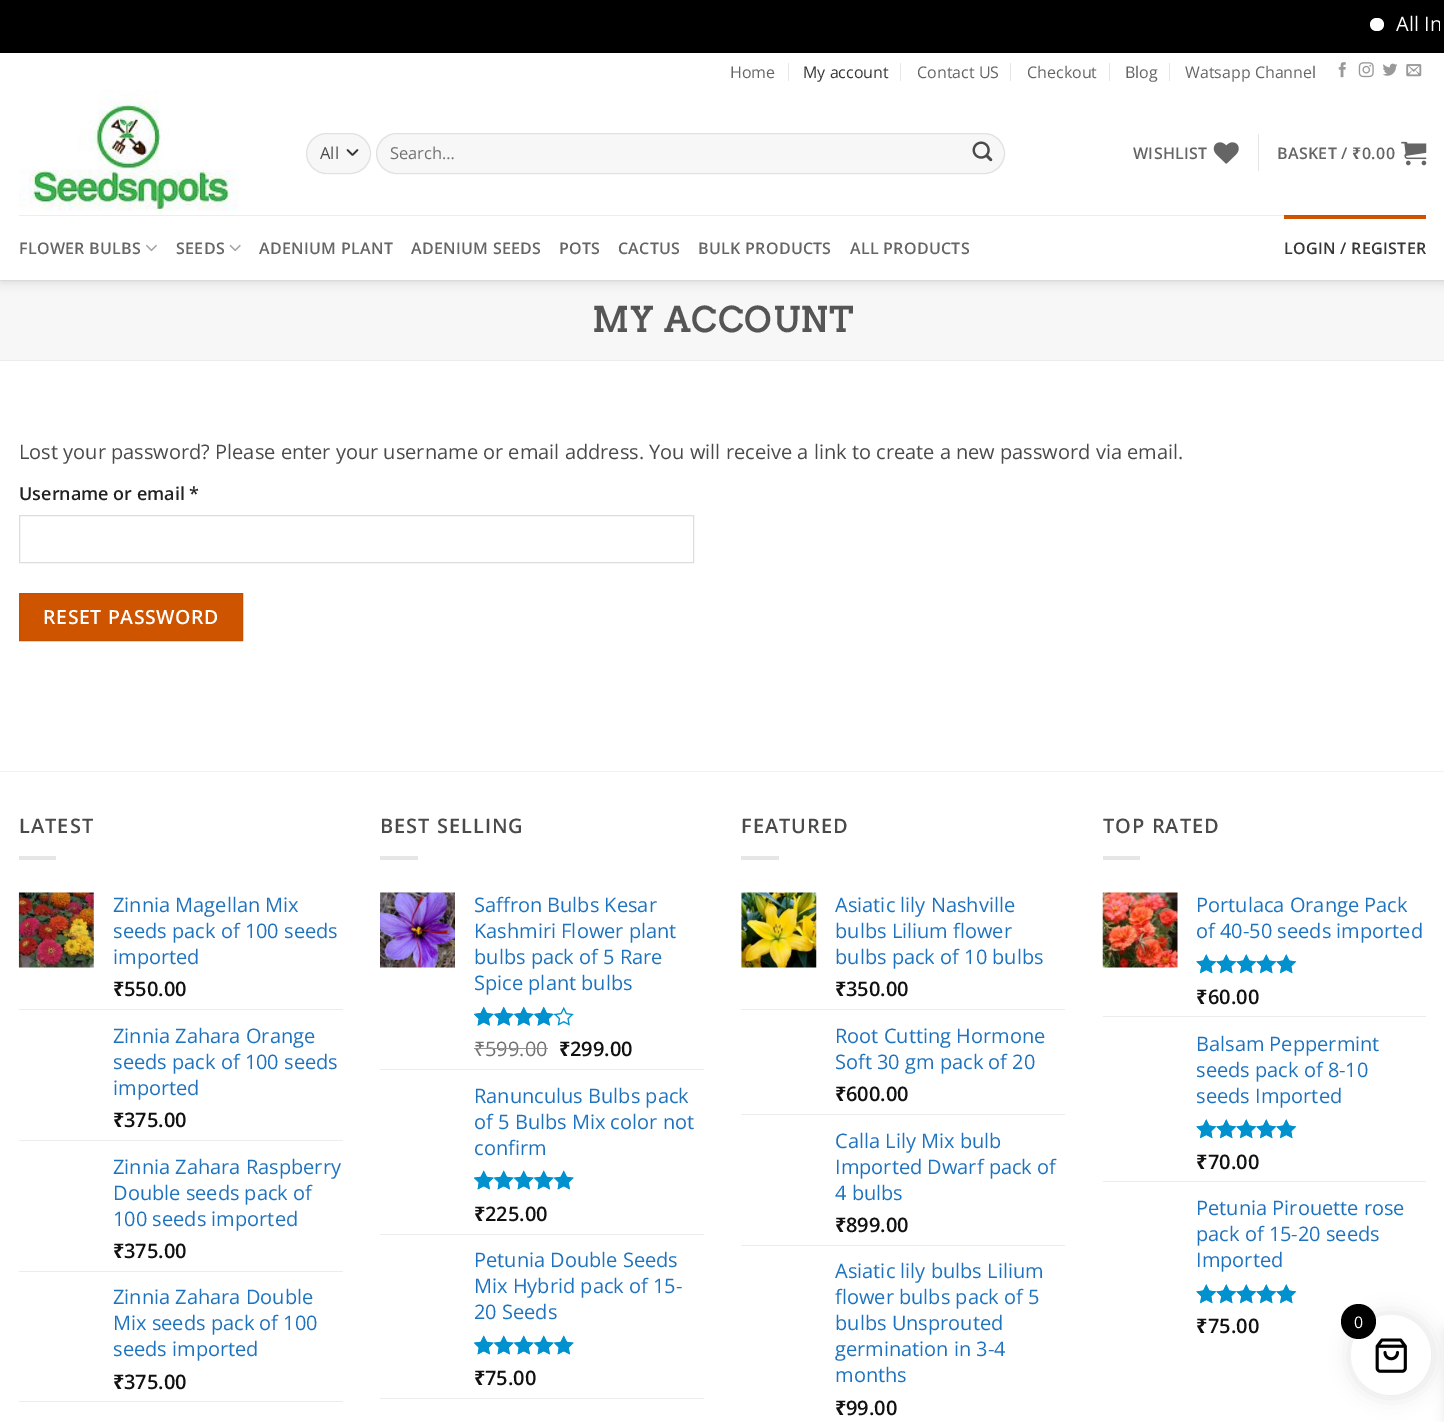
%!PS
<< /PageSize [1444 1422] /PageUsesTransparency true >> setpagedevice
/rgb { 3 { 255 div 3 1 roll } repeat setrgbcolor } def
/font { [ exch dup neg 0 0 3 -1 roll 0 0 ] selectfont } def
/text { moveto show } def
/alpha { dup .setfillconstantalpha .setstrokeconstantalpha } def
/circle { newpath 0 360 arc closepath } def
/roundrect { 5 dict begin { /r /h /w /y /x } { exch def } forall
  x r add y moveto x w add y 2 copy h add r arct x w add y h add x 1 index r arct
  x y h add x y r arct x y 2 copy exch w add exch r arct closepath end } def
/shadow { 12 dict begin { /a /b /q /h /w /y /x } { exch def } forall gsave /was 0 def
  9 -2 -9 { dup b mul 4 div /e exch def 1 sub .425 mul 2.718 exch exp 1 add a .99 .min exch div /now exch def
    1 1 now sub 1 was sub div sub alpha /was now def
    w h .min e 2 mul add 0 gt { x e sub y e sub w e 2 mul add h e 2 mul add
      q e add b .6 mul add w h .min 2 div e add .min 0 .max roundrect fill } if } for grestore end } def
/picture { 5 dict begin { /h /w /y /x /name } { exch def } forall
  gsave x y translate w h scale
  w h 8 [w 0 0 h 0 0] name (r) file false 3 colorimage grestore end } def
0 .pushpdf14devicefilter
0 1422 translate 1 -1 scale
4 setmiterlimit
0 0 0 rgb
0 0 1444 1422 rectfill
255 255 255 rgb
1370 18 14 13 6.5 roundrect fill
0 53 1444 1369 rectfill
237 237 237 rgb
19 215 1265 1 rectfill
247 247 247 rgb
0 281 1444 79 rectfill
236 236 236 rgb
0 280 1444 1 rectfill
gsave
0 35 moveto 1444 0 rlineto 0 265 rlineto -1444 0 rlineto closepath 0 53 moveto 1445 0 rlineto 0 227 rlineto -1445 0 rlineto closepath eoclip newpath
0 0 0 rgb
1 54 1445 227 0 6 0.15 shadow
grestore
230 230 230 rgb
788 63 1 18 rectfill
900 63 1 18 rectfill
1010 63 1 18 rectfill
1109 63 1 18 rectfill
1169 63 1 18 rectfill
(img_01.rgb) 1338 62 8 16 picture
(img_02.rgb) 1358 62 16 16 picture
(img_03.rgb) 1382 63 16 13 picture
(img_04.rgb) 1406 64 16 13 picture
(img_05.rgb) 19 90 220 121 picture
247 247 247 rgb
306 133 65 41 20.5 roundrect fill
51 51 51 rgb
1.7 setlinewidth
1 setlinecap
1 setlinejoin
347.5 150 moveto 5 5 rlineto 5 -5 rlineto stroke
0.09 alpha
0 0 0 rgb
1 setlinewidth
0 setlinecap
0 setlinejoin
306.5 133.5 64 40 20 roundrect stroke
1 alpha
247 247 247 rgb
376 133 629 41 20.5 roundrect fill
0.09 alpha
0 0 0 rgb
376.5 133.5 628 40 20 roundrect stroke
1 alpha
(img_06.rgb) 972 141 21 21 picture
(img_07.rgb) 1213 142 26 22 picture
230 230 230 rgb
1258 134 1 37 rectfill
(img_08.rgb) 1401 141 26 25 picture
(img_09.rgb) 145 244 12 8 picture
(img_10.rgb) 229 244 12 8 picture
206 84 0 rgb
1284 216 142 3 rectfill
193 83 7 rgb
1284 215 142 1 rectfill
236 236 236 rgb
0 360 1444 1 rectfill
221 221 221 rgb
19.5 515.5 674 47 rectstroke
206 84 0 rgb
19.5 593.5 moveto 223 0 rlineto 0 47 rlineto -223 0 rlineto closepath gsave fill grestore
196 80 0 rgb
stroke
242 242 242 rgb
0 771 1444 1 rectfill
230 230 230 rgb
19 856 37 4 rectfill
(img_11.rgb) 18 892 76 76 picture
236 236 236 rgb
19 1009 324 1 rectfill
19 1140 324 1 rectfill
19 1271 324 1 rectfill
19 1401 324 1 rectfill
230 230 230 rgb
380 856 38 4 rectfill
(img_12.rgb) 380 892 75 76 picture
(img_13.rgb) 474 1006 100 20 picture
(img_14.rgb) 474 1006 81 20 picture
236 236 236 rgb
380 1069 324 1 rectfill
(img_15.rgb) 474 1170 100 20 picture
(img_16.rgb) 474 1170 100 20 picture
380 1234 324 1 rectfill
(img_15.rgb) 474 1335 100 20 picture
(img_16.rgb) 474 1335 100 20 picture
380 1398 324 1 rectfill
230 230 230 rgb
741 856 38 4 rectfill
(img_17.rgb) 741 892 76 76 picture
236 236 236 rgb
741 1009 324 1 rectfill
741 1114 324 1 rectfill
741 1245 324 1 rectfill
230 230 230 rgb
1103 856 37 4 rectfill
(img_18.rgb) 1102 892 76 76 picture
(img_19.rgb) 1196 954 101 20 picture
(img_20.rgb) 1196 954 101 20 picture
236 236 236 rgb
1103 1016 323 1 rectfill
(img_19.rgb) 1196 1119 101 20 picture
(img_20.rgb) 1196 1119 101 20 picture
1103 1181 323 1 rectfill
(img_19.rgb) 1196 1284 101 20 picture
(img_20.rgb) 1196 1284 101 20 picture
0 0 0 rgb
1349 1313 85 85 42.5 9.5 0.1 shadow
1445 1330 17 91 0 6 0.1 shadow
255 255 255 rgb
1391 1355 40 circle fill
(img_21.rgb) 1375 1338 32 35 picture
0 0 0 rgb
1358.5 1321.5 17.5 circle fill
gsave
5 9 1435 32 rectclip
/OpenSans-Regular 20 font
255 255 255 rgb
(All In) 1396 31 text
grestore
/OpenSans-Regular 16 font
101 101 101 rgb
(Home) 730 78 text
54 54 54 rgb
(My account) 803 78 text
101 101 101 rgb
(Contact US) 917 78 text
(Checkout) 1027 78 text
(Blog) 1125 78 text
(Watsapp Channel) 1185 78 text
/OpenSans-Regular 16.5 font
74 74 74 rgb
(All) 320 159 text
112 112 112 rgb
(Search…) 390 159 text
/OpenSans-SemiBold 16 font
101 101 101 rgb
1133 159 moveto 0.3 0 (WISHLIST) ashow
1277 159 moveto 0.3 0 (BASKET /) ashow
/NotoSans-Bold 16 font
1352 159 moveto 0.3 0 (₹) ashow
/OpenSans-SemiBold 16 font
1362 159 moveto 0.3 0 (0.00) ashow
19 254 moveto 0.3 0 (FLOWER BULBS) ashow
176 254 moveto 0.3 0 (SEEDS) ashow
259 254 moveto 0.3 0 (ADENIUM PLANT) ashow
411 254 moveto 0.3 0 (ADENIUM SEEDS) ashow
559 254 moveto 0.3 0 (POTS) ashow
618 254 moveto 0.3 0 (CACTUS) ashow
698 254 moveto 0.3 0 (BULK PRODUCTS) ashow
850 254 moveto 0.3 0 (ALL PRODUCTS) ashow
54 54 54 rgb
1284 254 moveto 0.3 0 (LOGIN / REGISTER) ashow
/Arvo-Bold 34 font
85 85 85 rgb
592 332 moveto 1.75 0 (MY ACCOUNT) ashow
/OpenSans-Regular 20 font
74 74 74 rgb
(Lost your password? Please enter your username or email address. You will receive a link to create a new password via email.) 19 459 text
/OpenSans-SemiBold 18 font
34 34 34 rgb
(Username or email *) 19 500 text
/OpenSans-SemiBold 19.5 font
255 255 255 rgb
43 624 moveto 0.6 0 (RESET PASSWORD) ashow
/OpenSans-SemiBold 20 font
74 74 74 rgb
19 833 moveto 1 0 (LATEST) ashow
/OpenSans-Regular 20 font
30 115 190 rgb
(Zinnia Magellan Mix) 113 912 text
(seeds pack of 100 seeds) 113 938 text
(imported) 113 964 text
/NotoSans-Bold 20 font
17 17 17 rgb
(₹) 113 996 text
/OpenSans-SemiBold 20 font
(550.00) 124 996 text
/OpenSans-Regular 20 font
30 115 190 rgb
(Zinnia Zahara Orange) 113 1043 text
(seeds pack of 100 seeds) 113 1069 text
(imported) 113 1095 text
/NotoSans-Bold 20 font
17 17 17 rgb
(₹) 113 1127 text
/OpenSans-SemiBold 20 font
(375.00) 124 1127 text
/OpenSans-Regular 20 font
30 115 190 rgb
(Zinnia Zahara Raspberry) 113 1174 text
(Double seeds pack of) 113 1200 text
(100 seeds imported) 113 1226 text
/NotoSans-Bold 20 font
17 17 17 rgb
(₹) 113 1258 text
/OpenSans-SemiBold 20 font
(375.00) 124 1258 text
/OpenSans-Regular 20 font
30 115 190 rgb
(Zinnia Zahara Double) 113 1304 text
(Mix seeds pack of 100) 113 1330 text
(seeds imported) 113 1356 text
/NotoSans-Bold 20 font
17 17 17 rgb
(₹) 113 1389 text
/OpenSans-SemiBold 20 font
(375.00) 124 1389 text
74 74 74 rgb
380 833 moveto 1 0 (BEST SELLING) ashow
/OpenSans-Regular 20 font
30 115 190 rgb
(Saffron Bulbs Kesar) 474 912 text
(Kashmiri Flower plant) 474 938 text
(bulbs pack of 5 Rare) 474 964 text
(Spice plant bulbs) 474 990 text
/NotoSans-Regular 20 font
112 112 112 rgb
(₹) 474 1056 text
146 146 146 rgb
474 1048 11 1 rectfill
/OpenSans-Regular 20 font
112 112 112 rgb
(599.00) 485 1056 text
146 146 146 rgb
485 1048 63 1 rectfill
/NotoSans-Bold 20 font
17 17 17 rgb
(₹) 559 1056 text
/OpenSans-SemiBold 20 font
(299.00) 570 1056 text
/OpenSans-Regular 20 font
30 115 190 rgb
(Ranunculus Bulbs pack) 474 1103 text
(of 5 Bulbs Mix color not) 474 1129 text
(confirm) 474 1155 text
/NotoSans-Bold 20 font
17 17 17 rgb
(₹) 474 1221 text
/OpenSans-SemiBold 20 font
(225.00) 485 1221 text
/OpenSans-Regular 20 font
30 115 190 rgb
(Petunia Double Seeds) 474 1267 text
(Mix Hybrid pack of 15-) 474 1293 text
(20 Seeds) 474 1319 text
/NotoSans-Bold 20 font
17 17 17 rgb
(₹) 474 1385 text
/OpenSans-SemiBold 20 font
(75.00) 485 1385 text
74 74 74 rgb
741 833 moveto 1 0 (FEATURED) ashow
/OpenSans-Regular 20 font
30 115 190 rgb
(Asiatic lily Nashville) 835 912 text
(bulbs Lilium flower) 835 938 text
(bulbs pack of 10 bulbs) 835 964 text
/NotoSans-Bold 20 font
17 17 17 rgb
(₹) 835 996 text
/OpenSans-SemiBold 20 font
(350.00) 846 996 text
/OpenSans-Regular 20 font
30 115 190 rgb
(Root Cutting Hormone) 835 1043 text
(Soft 30 gm pack of 20) 835 1069 text
/NotoSans-Bold 20 font
17 17 17 rgb
(₹) 835 1101 text
/OpenSans-SemiBold 20 font
(600.00) 846 1101 text
/OpenSans-Regular 20 font
30 115 190 rgb
(Calla Lily Mix bulb) 835 1148 text
(Imported Dwarf pack of) 835 1174 text
(4 bulbs) 835 1200 text
/NotoSans-Bold 20 font
17 17 17 rgb
(₹) 835 1232 text
/OpenSans-SemiBold 20 font
(899.00) 846 1232 text
/OpenSans-Regular 20 font
30 115 190 rgb
(Asiatic lily bulbs Lilium) 835 1278 text
(flower bulbs pack of 5) 835 1304 text
(bulbs Unsprouted) 835 1330 text
(germination in 3-4) 835 1356 text
(months) 835 1382 text
/NotoSans-Bold 20 font
17 17 17 rgb
(₹) 835 1415 text
/OpenSans-SemiBold 20 font
(99.00) 846 1415 text
74 74 74 rgb
1103 833 moveto 1 0 (TOP RATED) ashow
/OpenSans-Regular 20 font
30 115 190 rgb
(Portulaca Orange Pack) 1196 912 text
(of 40-50 seeds imported) 1196 938 text
/NotoSans-Bold 20 font
17 17 17 rgb
(₹) 1196 1004 text
/OpenSans-SemiBold 20 font
(60.00) 1208 1004 text
/OpenSans-Regular 20 font
30 115 190 rgb
(Balsam Peppermint) 1196 1051 text
(seeds pack of 8-10) 1196 1077 text
(seeds Imported) 1196 1103 text
/NotoSans-Bold 20 font
17 17 17 rgb
(₹) 1196 1169 text
/OpenSans-SemiBold 20 font
(70.00) 1208 1169 text
/OpenSans-Regular 20 font
30 115 190 rgb
(Petunia Pirouette rose) 1196 1215 text
(pack of 15-20 seeds) 1196 1241 text
(Imported) 1196 1267 text
/NotoSans-Bold 20 font
17 17 17 rgb
(₹) 1196 1333 text
/OpenSans-SemiBold 20 font
(75.00) 1208 1333 text
/OpenSans-Regular 16 font
255 255 255 rgb
(0) 1354 1328 text
.poppdf14devicefilter showpage
